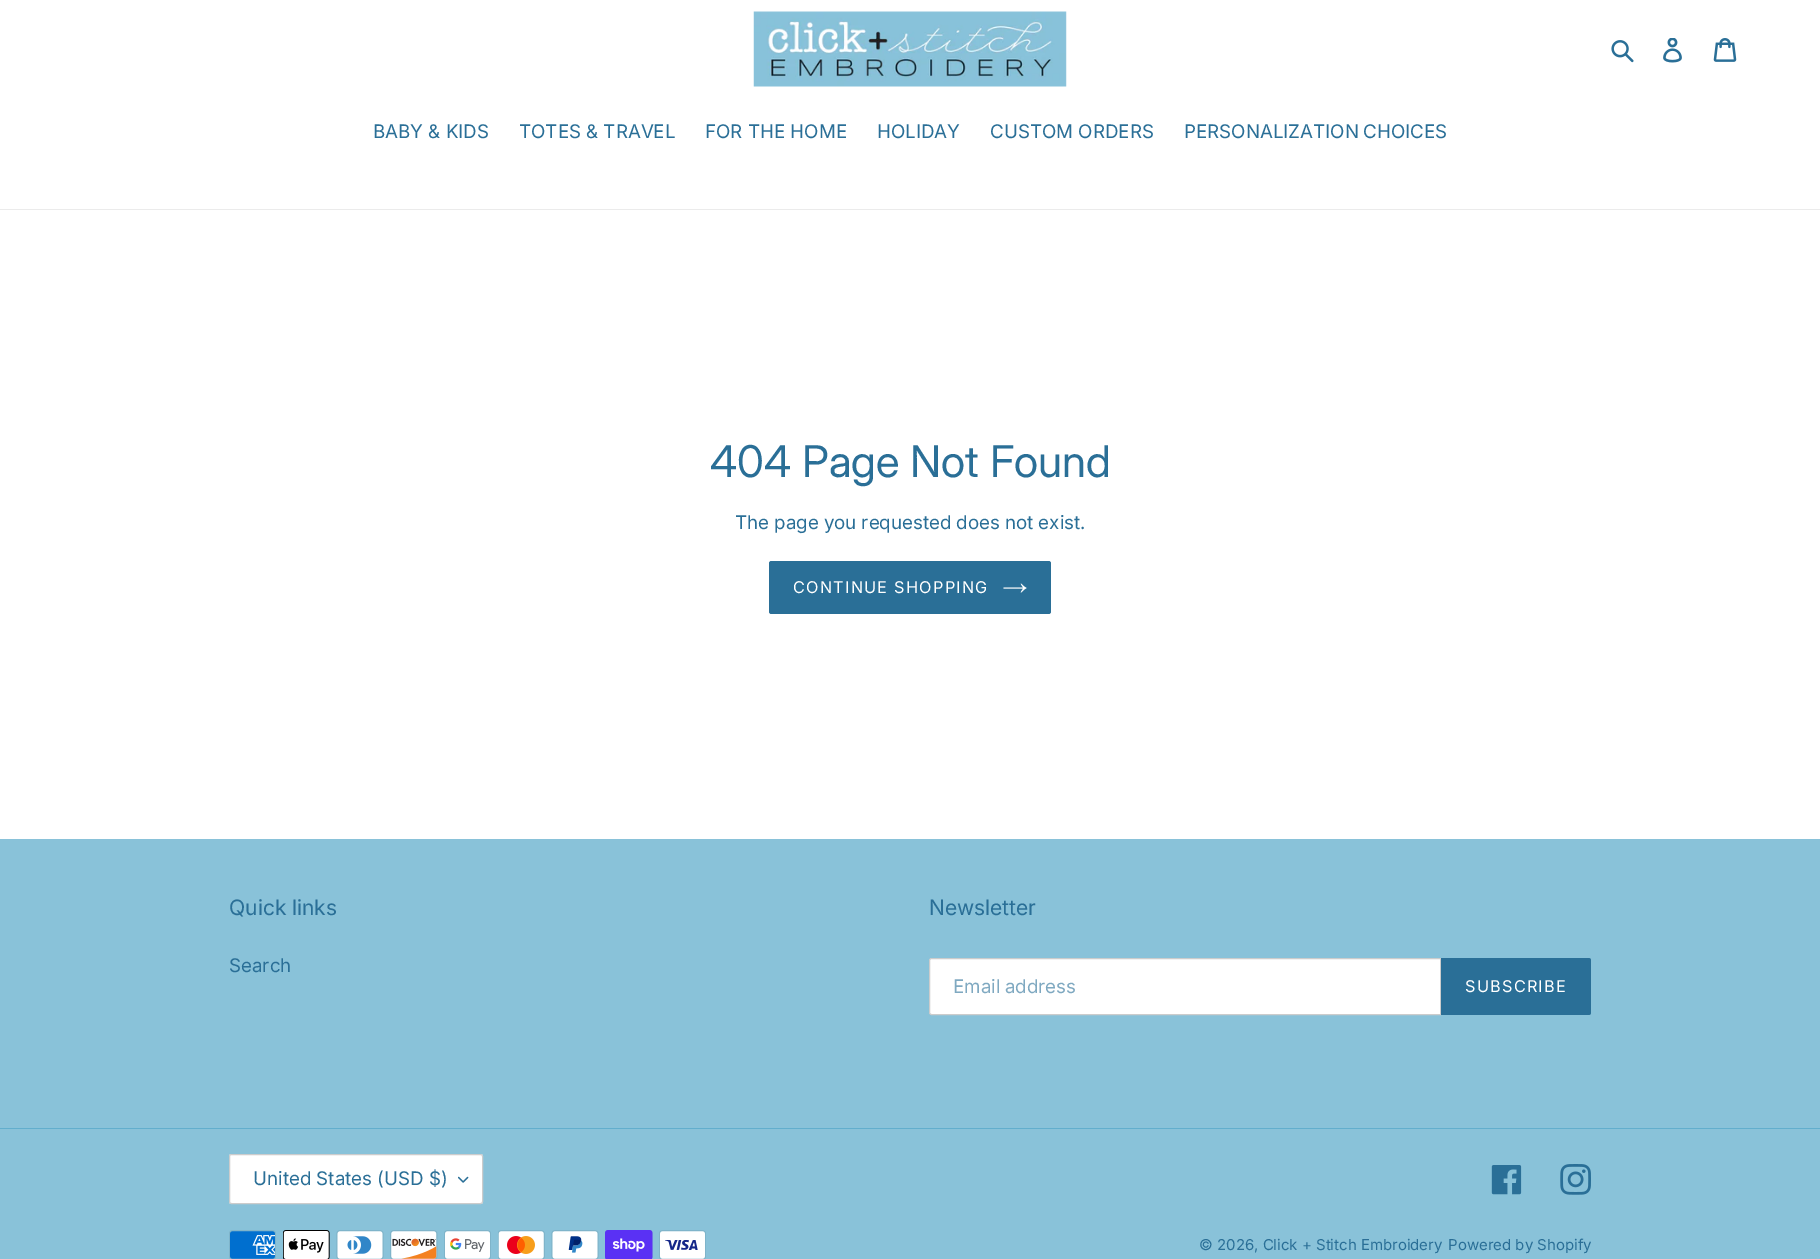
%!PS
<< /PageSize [1820 1259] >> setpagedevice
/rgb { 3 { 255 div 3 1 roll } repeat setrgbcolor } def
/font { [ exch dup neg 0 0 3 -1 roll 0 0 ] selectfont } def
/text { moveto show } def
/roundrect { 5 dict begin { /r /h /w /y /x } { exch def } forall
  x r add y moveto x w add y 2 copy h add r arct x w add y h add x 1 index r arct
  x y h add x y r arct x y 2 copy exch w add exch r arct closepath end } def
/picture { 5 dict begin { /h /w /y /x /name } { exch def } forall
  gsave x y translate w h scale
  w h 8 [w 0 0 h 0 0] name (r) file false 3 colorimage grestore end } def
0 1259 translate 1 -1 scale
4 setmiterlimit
255 255 255 rgb
0 0 1820 1259 rectfill
(img_01.rgb) 753 11 314 76 picture
(img_02.rgb) 1611 40 23 23 picture
(img_03.rgb) 1663 38 19 25 picture
(img_04.rgb) 1713 38 24 24 picture
235 235 235 rgb
0 209 1820 1 rectfill
42 111 151 rgb
769 561 282 53 2.5 roundrect fill
(img_05.rgb) 1003 583 24 10 picture
137 194 217 rgb
0 839 1820 420 rectfill
255 255 255 rgb
931.5 958.5 moveto 509 0 rlineto 0 56 rlineto -509 0 rlineto -1 0 -2 -1 -2 -2 rcurveto 0 -52 rlineto 0 -1 1 -2 2 -2 rcurveto closepath gsave fill grestore
204 204 204 rgb
stroke
42 111 151 rgb
1441 958 moveto 147.5 0 rlineto 1.5 0 2.5 1 2.5 2.5 rcurveto 0 52 rlineto 0 1.5 -1 2.5 -2.5 2.5 rcurveto -147.5 0 rlineto closepath fill
98 174 205 rgb
0 1128 1820 1 rectfill
255 255 255 rgb
229 1154 254 50 2.5 roundrect fill
(img_06.rgb) 458 1176 11 7 picture
204 204 204 rgb
229.5 1154.5 253 49 2 roundrect stroke
(img_07.rgb) 1491 1165 31 30 picture
(img_08.rgb) 1560 1164 31 31 picture
(img_09.rgb) 229 1230 47 29 picture
(img_10.rgb) 283 1230 47 29 picture
(img_11.rgb) 336 1230 48 29 picture
(img_12.rgb) 390 1230 48 29 picture
(img_13.rgb) 444 1230 47 29 picture
(img_14.rgb) 498 1230 47 29 picture
(img_15.rgb) 551 1230 48 29 picture
(img_16.rgb) 605 1230 48 29 picture
(img_17.rgb) 659 1230 47 29 picture
/Inter-Regular 18.75 font
42 111 151 rgb
(BABY & KIDS) 373 138 text
(TOTES & TRAVEL) 519 138 text
(FOR THE HOME) 705 138 text
(HOLIDAY) 877 138 text
(CUSTOM ORDERS) 990 138 text
1184 138 moveto -1 0 32 (PERSONALIZATION CHOICES) widthshow
/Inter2-Regular 43.75 font
(404 Page Not Found) 710 477 text
/Inter-Regular 18.75 font
735 529 moveto -0.25 0 32 (The page you requested does not exist.) widthshow
/Inter-Regular 16.25 font
255 255 255 rgb
793 593 moveto 1.25 0 (CONTINUE SHOPPING) ashow
/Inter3-Regular 21.25 font
42 111 151 rgb
(Quick links) 229 915 text
/Inter-Regular 18.75 font
(Search) 229 972 text
/Inter3-Regular 21.25 font
(Newsletter) 929 915 text
/Inter-Regular 18.75 font
127 169 193 rgb
953 993 moveto -1 0 32 (Email address) widthshow
/Inter-Regular 16.25 font
255 255 255 rgb
1465 992 moveto 1.25 0 (SUBSCRIBE) ashow
/Inter-Regular 18.75 font
42 111 151 rgb
(United States \(USD $\)) 253 1185 text
/Inter-Regular 15 font
(© 2026, Click + Stitch Embroidery) 1199 1250 text
(Powered by Shopify) 1448 1250 text
showpage
